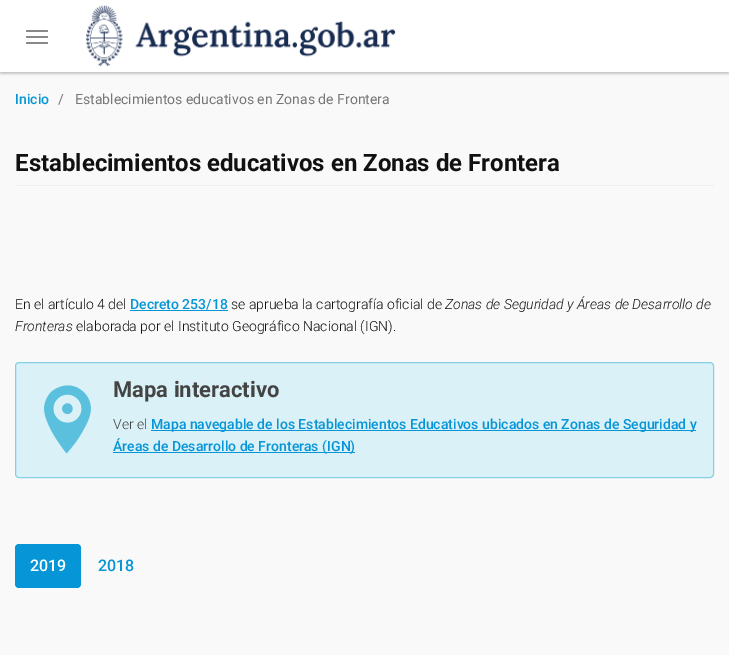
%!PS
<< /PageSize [729 655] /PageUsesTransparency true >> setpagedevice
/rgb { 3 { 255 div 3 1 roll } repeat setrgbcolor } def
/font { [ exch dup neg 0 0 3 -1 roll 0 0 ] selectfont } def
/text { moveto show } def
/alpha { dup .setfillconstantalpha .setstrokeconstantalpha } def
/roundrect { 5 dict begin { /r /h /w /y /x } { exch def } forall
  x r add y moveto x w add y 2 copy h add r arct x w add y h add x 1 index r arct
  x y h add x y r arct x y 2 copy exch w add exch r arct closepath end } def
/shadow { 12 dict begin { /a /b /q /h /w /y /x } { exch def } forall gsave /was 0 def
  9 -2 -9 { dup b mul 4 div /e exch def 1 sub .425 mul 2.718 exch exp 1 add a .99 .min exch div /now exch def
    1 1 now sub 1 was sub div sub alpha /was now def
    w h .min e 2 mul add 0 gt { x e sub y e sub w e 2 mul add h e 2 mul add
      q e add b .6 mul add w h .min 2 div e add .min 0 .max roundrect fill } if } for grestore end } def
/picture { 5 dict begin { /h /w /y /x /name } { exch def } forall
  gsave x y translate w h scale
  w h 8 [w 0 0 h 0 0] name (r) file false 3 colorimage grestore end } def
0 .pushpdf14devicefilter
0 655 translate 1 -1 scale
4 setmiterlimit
249 249 249 rgb
0 0 729 655 rectfill
0 0 0 rgb
0 2 729 72 0 1 0.2 shadow
255 255 255 rgb
0 0 729 72 rectfill
136 136 136 rgb
26 30 22 2 1 roundrect fill
26 36 22 2 1 roundrect fill
26 42 22 2 1 roundrect fill
(img_01.rgb) 86 5 310 62 picture
238 238 238 rgb
15 185 699 1 rectfill
6 149 214 rgb
130 310 98 1 rectfill
218 241 248 rgb
15.5 362.5 698 115 3.5 roundrect gsave fill grestore
133 208 231 rgb
stroke
(img_02.rgb) 44 385 47 69 picture
6 149 214 rgb
151 430 545 1 rectfill
113 452 242 1 rectfill
15 544 66 44 4 roundrect fill
/Roboto-Medium 14 font
(Inicio) 15 104 text
/Roboto-Regular 14 font
118 118 118 rgb
(/) 58 104 text
(Establecimientos educativos en Zonas de Frontera) 75 104 text
/Roboto-Bold 24 font
17 17 17 rgb
(Establecimientos educativos en Zonas de Frontera) 15 171 text
/Roboto-Light 14 font
(En el artículo 4 del) 15 309 text
/Roboto-Medium 14 font
6 149 214 rgb
(Decreto 253/18) 130 309 text
/Roboto-Light 14 font
17 17 17 rgb
(se aprueba la cartografía oficial de) 231 309 text
/Roboto-LightItalic 14 font
(Zonas de Seguridad y Áreas de Desarrollo de) 445 309 text
(Fronteras) 15 331 text
/Roboto-Light 14 font
(elaborada por el Instituto Geográfico Nacional \(IGN\).) 76 331 text
/Roboto-Bold 22 font
68 68 68 rgb
(Mapa interactivo) 113 397 text
/Roboto-Light 14 font
(Ver el) 113 429 text
/Roboto-Medium 14 font
6 149 214 rgb
(Mapa navegable de los Establecimientos Educativos ubicados en Zonas de Seguridad y) 151 429 text
(Áreas de Desarrollo de Fronteras \(IGN\)) 113 451 text
/Roboto-Medium 16 font
255 255 255 rgb
(2019) 30 571 text
6 149 214 rgb
(2018) 98 571 text
.poppdf14devicefilter showpage
